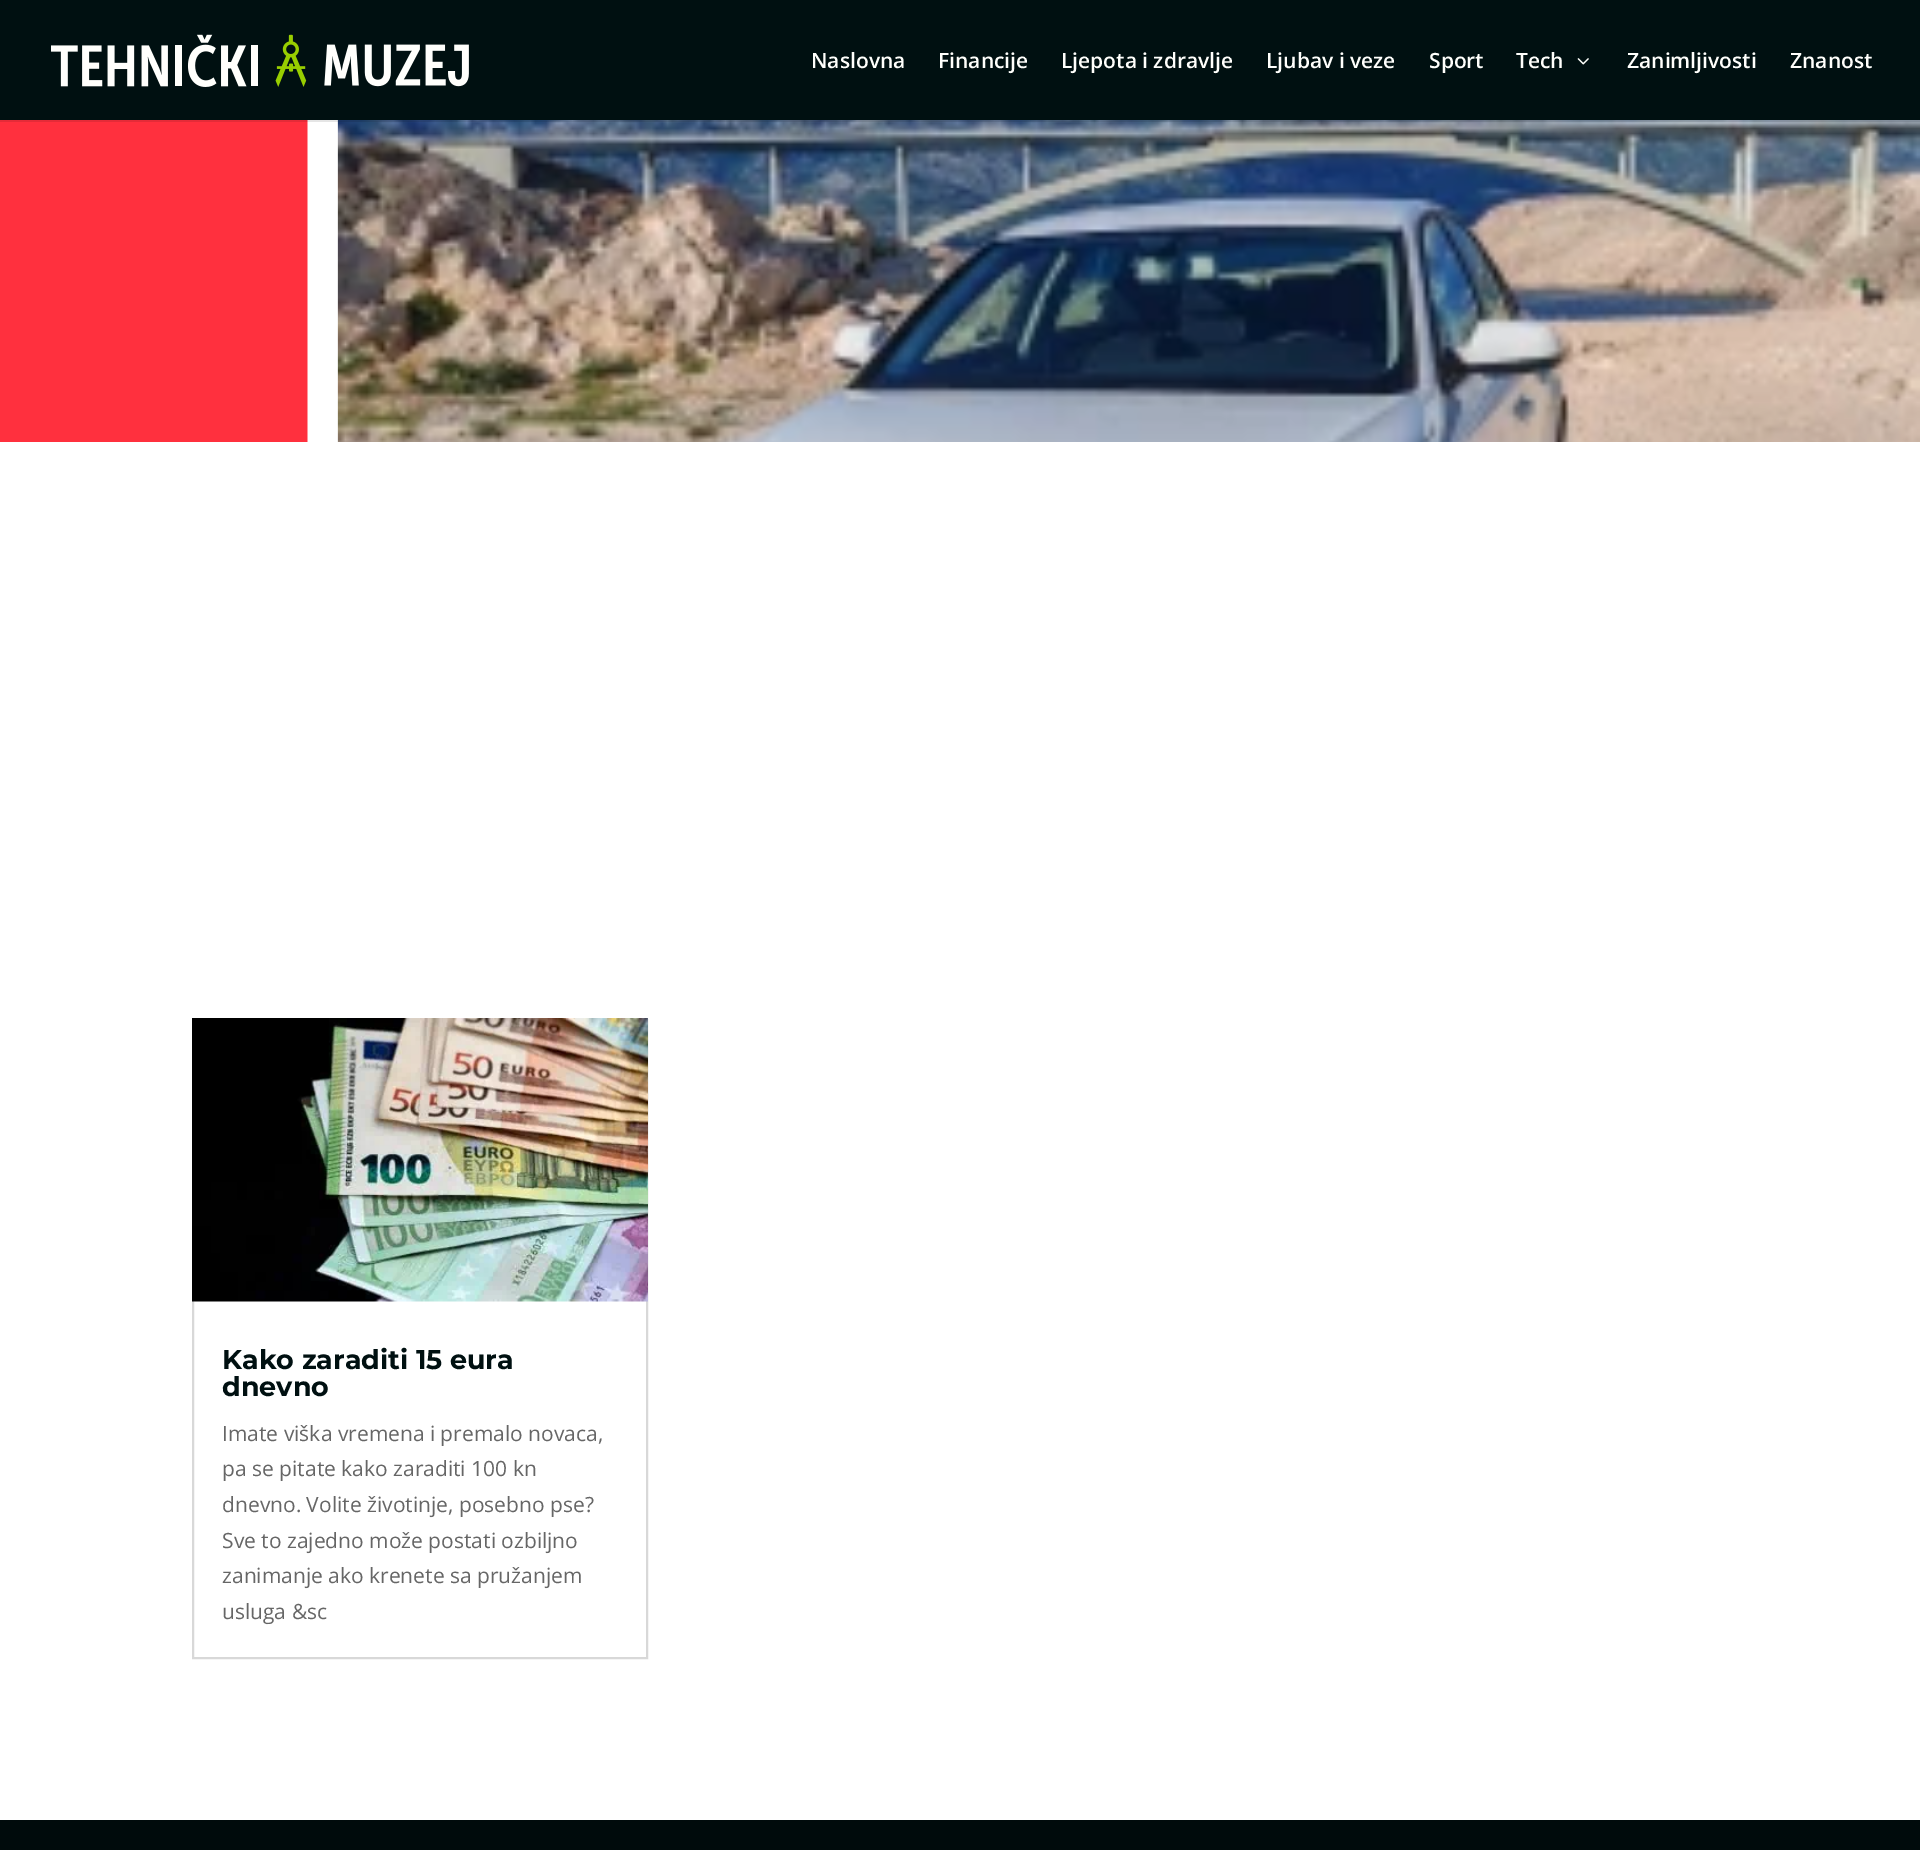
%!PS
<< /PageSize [1920 1850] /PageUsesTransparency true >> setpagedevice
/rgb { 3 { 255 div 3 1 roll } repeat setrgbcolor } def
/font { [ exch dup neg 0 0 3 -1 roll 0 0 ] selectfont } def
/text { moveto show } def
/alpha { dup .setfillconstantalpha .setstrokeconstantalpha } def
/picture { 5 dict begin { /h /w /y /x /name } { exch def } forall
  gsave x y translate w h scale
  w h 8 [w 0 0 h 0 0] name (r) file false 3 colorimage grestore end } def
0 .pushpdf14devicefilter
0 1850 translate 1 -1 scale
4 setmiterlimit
255 255 255 rgb
0 0 1920 1850 rectfill
(img_03.rgb) 0 120 1920 322 picture
0.1 alpha
0 0 0 rgb
0 120 1920 2 rectfill
1 alpha
0 16 17 rgb
0 0 1920 120 rectfill
(img_01.rgb) 51 34 418 53 picture
(img_02.rgb) 1577 58 12 7 picture
216 216 216 rgb
2 setlinewidth
193 1020 454 638 rectstroke
(img_04.rgb) 192 1018 456 284 picture
0 11 12 rgb
0 1820 1920 30 rectfill
/OpenSans-SemiBold 21 font
255 255 252 rgb
(Naslovna) 811 68 text
(Financije) 938 68 text
(Ljepota i zdravlje) 1061 68 text
(Ljubav i veze) 1266 68 text
(Sport) 1429 68 text
(Tech) 1516 68 text
(Zanimljivosti) 1627 68 text
(Znanost) 1790 68 text
/Montserrat-Thin 27 font
0 16 17 rgb
(Kako zaraditi 15 eura) 222 1369 text
(dnevno) 222 1396 text
/OpenSans-Regular 21 font
102 102 102 rgb
(Imate viška vremena i premalo novaca,) 222 1441 text
(pa se pitate kako zaraditi 100 kn) 222 1476 text
(dnevno. Volite životinje, posebno pse?) 222 1512 text
(Sve to zajedno može postati ozbiljno) 222 1548 text
(zanimanje ako krenete sa pružanjem) 222 1583 text
(usluga &sc) 222 1619 text
.poppdf14devicefilter showpage
